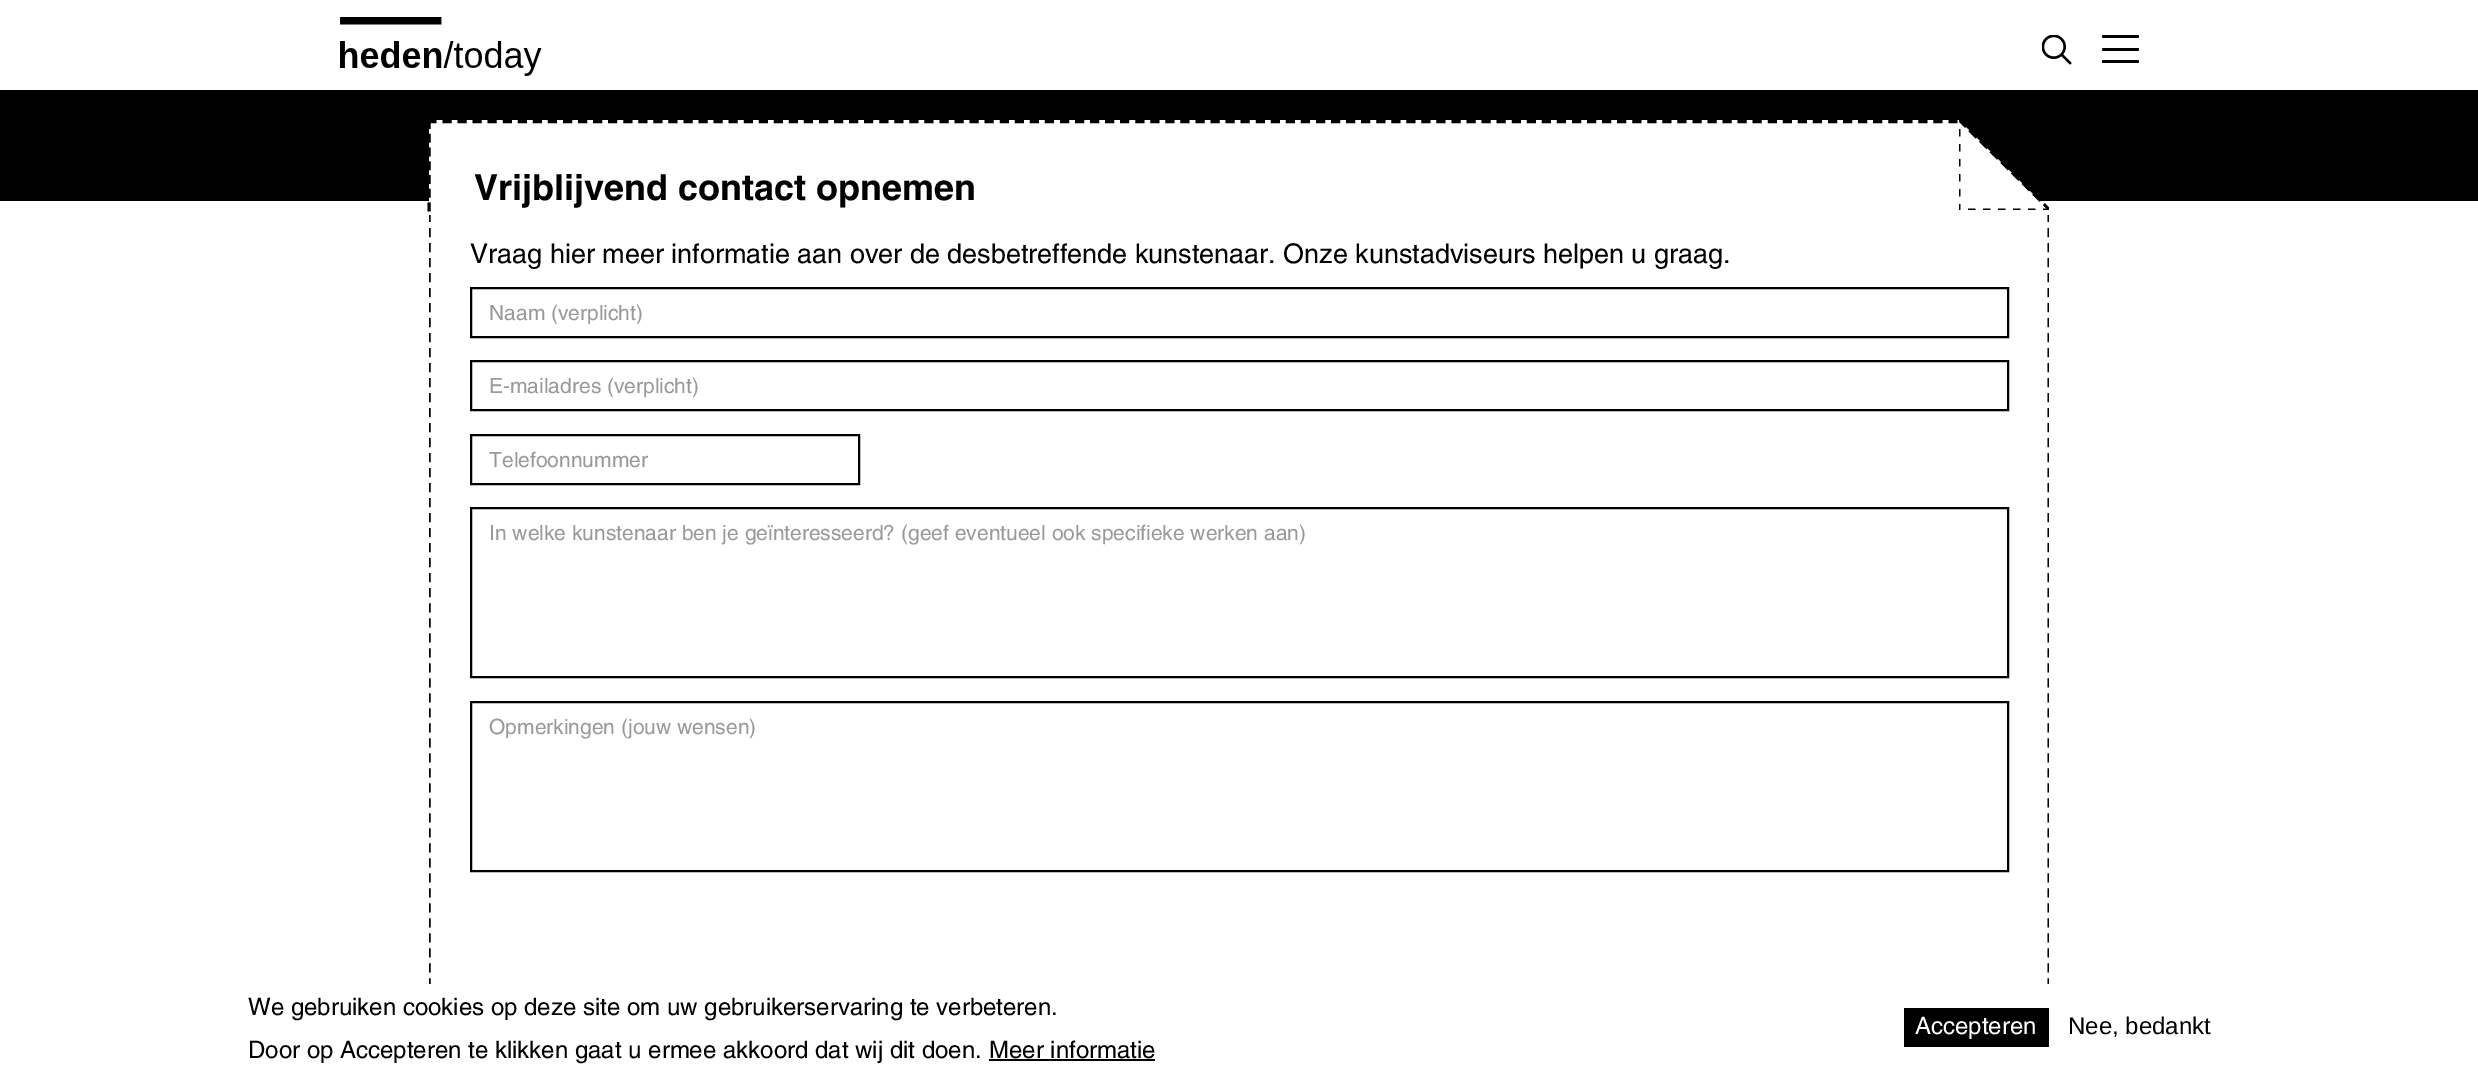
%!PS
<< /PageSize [2478 1080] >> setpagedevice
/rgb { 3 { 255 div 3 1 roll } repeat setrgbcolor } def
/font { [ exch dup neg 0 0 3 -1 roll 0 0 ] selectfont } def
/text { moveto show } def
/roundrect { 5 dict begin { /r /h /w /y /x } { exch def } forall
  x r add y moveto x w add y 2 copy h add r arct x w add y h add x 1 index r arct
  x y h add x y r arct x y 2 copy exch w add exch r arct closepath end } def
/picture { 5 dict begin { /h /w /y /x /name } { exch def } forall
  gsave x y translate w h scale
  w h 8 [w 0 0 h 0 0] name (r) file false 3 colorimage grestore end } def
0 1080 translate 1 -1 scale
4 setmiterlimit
255 255 255 rgb
0 0 2478 1080 rectfill
(img_01.rgb) 340 17 202 59 picture
(img_02.rgb) 2042 35 30 30 picture
0 0 0 rgb
2102 35 37 3 1.5 roundrect fill
2102 48 37 3 1.5 roundrect fill
2102 60 37 3 1.5 roundrect fill
0 90 2478 111 rectfill
255 255 255 rgb
429 120 1530 81 rectfill
0 0 0 rgb
3 setlinewidth
[9 6.06] 0 setdash
427.5 121.5 moveto 1530 0 rlineto stroke
[9 4.75] 0 setdash
429 120 moveto 0 91.5 rlineto stroke
255 255 255 rgb
1959 210 moveto 0 -90 rlineto 90 90 rlineto closepath fill
(img_03.rgb) 1959 120 90 90 picture
gsave
429 215 1620 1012 rectclip
0 0 0 rgb
[9 6.01] 0 setdash
2049 213 moveto 0 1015.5 rlineto stroke
429 213 moveto 0 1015.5 rlineto stroke
grestore
0 0 0 rgb
2 setlinewidth
[] 0 setdash
471 288 1537 49 rectstroke
471 361 1537 49 rectstroke
471 435 388 49 rectstroke
471 508 1537 169 rectstroke
471 702 1537 169 rectstroke
255 255 255 rgb
429 984 1620 94 rectfill
0 0 0 rgb
989 1059 166 2 rectfill
1904 1008 145 39 rectfill
/Helvetica-Bold 36 font
(Vrijblijvend contact opnemen) 474 200 text
/Helvetica-Regular 27 font
(Vraag hier meer informatie aan over de desbetreffende kunstenaar. Onze kunstadviseurs helpen u graag.) 470 263 text
gsave
489 300 1500 24 rectclip
/Helvetica-Regular 21 font
153 153 153 rgb
(Naam \(verplicht\)) 489 320 text
grestore
/Helvetica-Regular 21 font
153 153 153 rgb
(E-mailadres \(verplicht\)) 489 393 text
(Telefoonnummer) 489 467 text
(In welke kunstenaar ben je geïnteresseerd? \(geef eventueel ook specifieke werken aan\)) 489 540 text
(Opmerkingen \(jouw wensen\)) 489 734 text
/Helvetica-Regular 24 font
0 0 0 rgb
(We gebruiken cookies op deze site om uw gebruikerservaring te verbeteren.) 248 1015 text
(Door op Accepteren te klikken gaat u ermee akkoord dat wij dit doen.) 248 1058 text
(Meer informatie) 989 1058 text
255 255 255 rgb
(Accepteren) 1915 1034 text
/LiberationSans-Regular 24 font
0 0 0 rgb
(Nee, bedankt) 2068 1034 text
showpage
